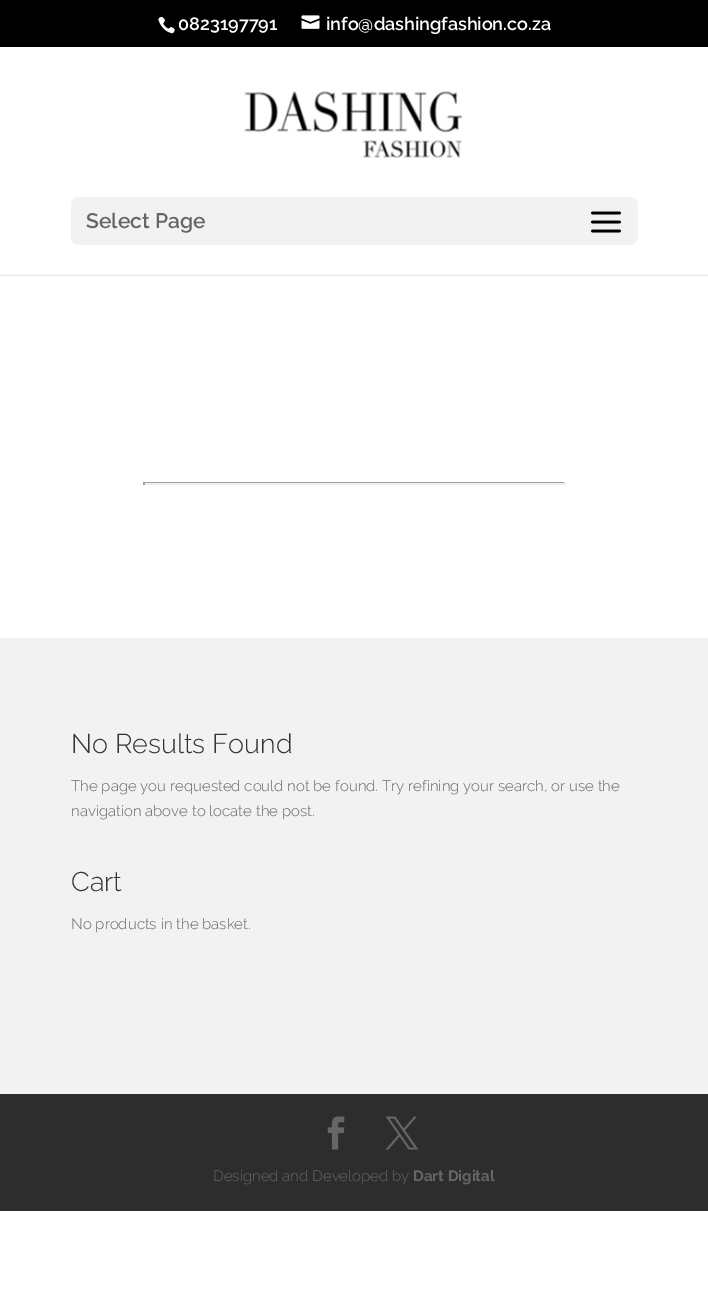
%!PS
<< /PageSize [708 1309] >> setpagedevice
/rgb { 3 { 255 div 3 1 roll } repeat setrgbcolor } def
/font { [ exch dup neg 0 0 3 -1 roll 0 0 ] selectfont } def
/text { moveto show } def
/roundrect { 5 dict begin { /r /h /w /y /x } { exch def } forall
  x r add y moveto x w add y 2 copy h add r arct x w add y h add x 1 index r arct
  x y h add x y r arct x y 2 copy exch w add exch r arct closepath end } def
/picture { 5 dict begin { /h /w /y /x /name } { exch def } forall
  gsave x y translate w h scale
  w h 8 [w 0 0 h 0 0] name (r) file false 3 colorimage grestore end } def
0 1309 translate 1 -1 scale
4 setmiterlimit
255 255 255 rgb
0 0 708 1309 rectfill
0 0 0 rgb
0 0 708 47 rectfill
(img_01.rgb) 158 16 17 18 picture
(img_02.rgb) 301 15 19 14 picture
230 230 230 rgb
0 275 708 1 rectfill
(img_03.rgb) 244 91 219 67 picture
242 242 242 rgb
71 197 567 48 8 roundrect fill
(img_04.rgb) 591 211 30 22 picture
159 159 159 rgb
143 482 423 1 rectfill
238 238 238 rgb
564 482 2 3 rectfill
143 483 423 2 rectfill
159 159 159 rgb
143 482 2 3 rectfill
242 242 242 rgb
0 638 708 456 rectfill
45 45 45 rgb
0 1094 708 117 rectfill
(img_05.rgb) 327 1116 18 34 picture
(img_06.rgb) 385 1116 34 34 picture
/Raleway-SemiBold 18 font
255 255 255 rgb
(0823197791) 178 30 text
(info@dashingfashion.co.za) 326 30 text
/Raleway-SemiBold 21 font
102 102 102 rgb
(Select Page) 86 228 text
/Raleway-Light 27 font
51 51 51 rgb
(No Results Found) 71 753 text
/Raleway-Light 15 font
102 102 102 rgb
(The page you requested could not be found. Try refining your search, or use the) 71 791 text
(navigation above to locate the post.) 71 816 text
/Raleway-Light 27 font
51 51 51 rgb
(Cart) 71 891 text
/Raleway-Light 15 font
102 102 102 rgb
(No products in the basket.) 71 929 text
(Designed and Developed by) 213 1181 text
/Raleway-Bold 15 font
(Dart Digital) 413 1181 text
showpage
